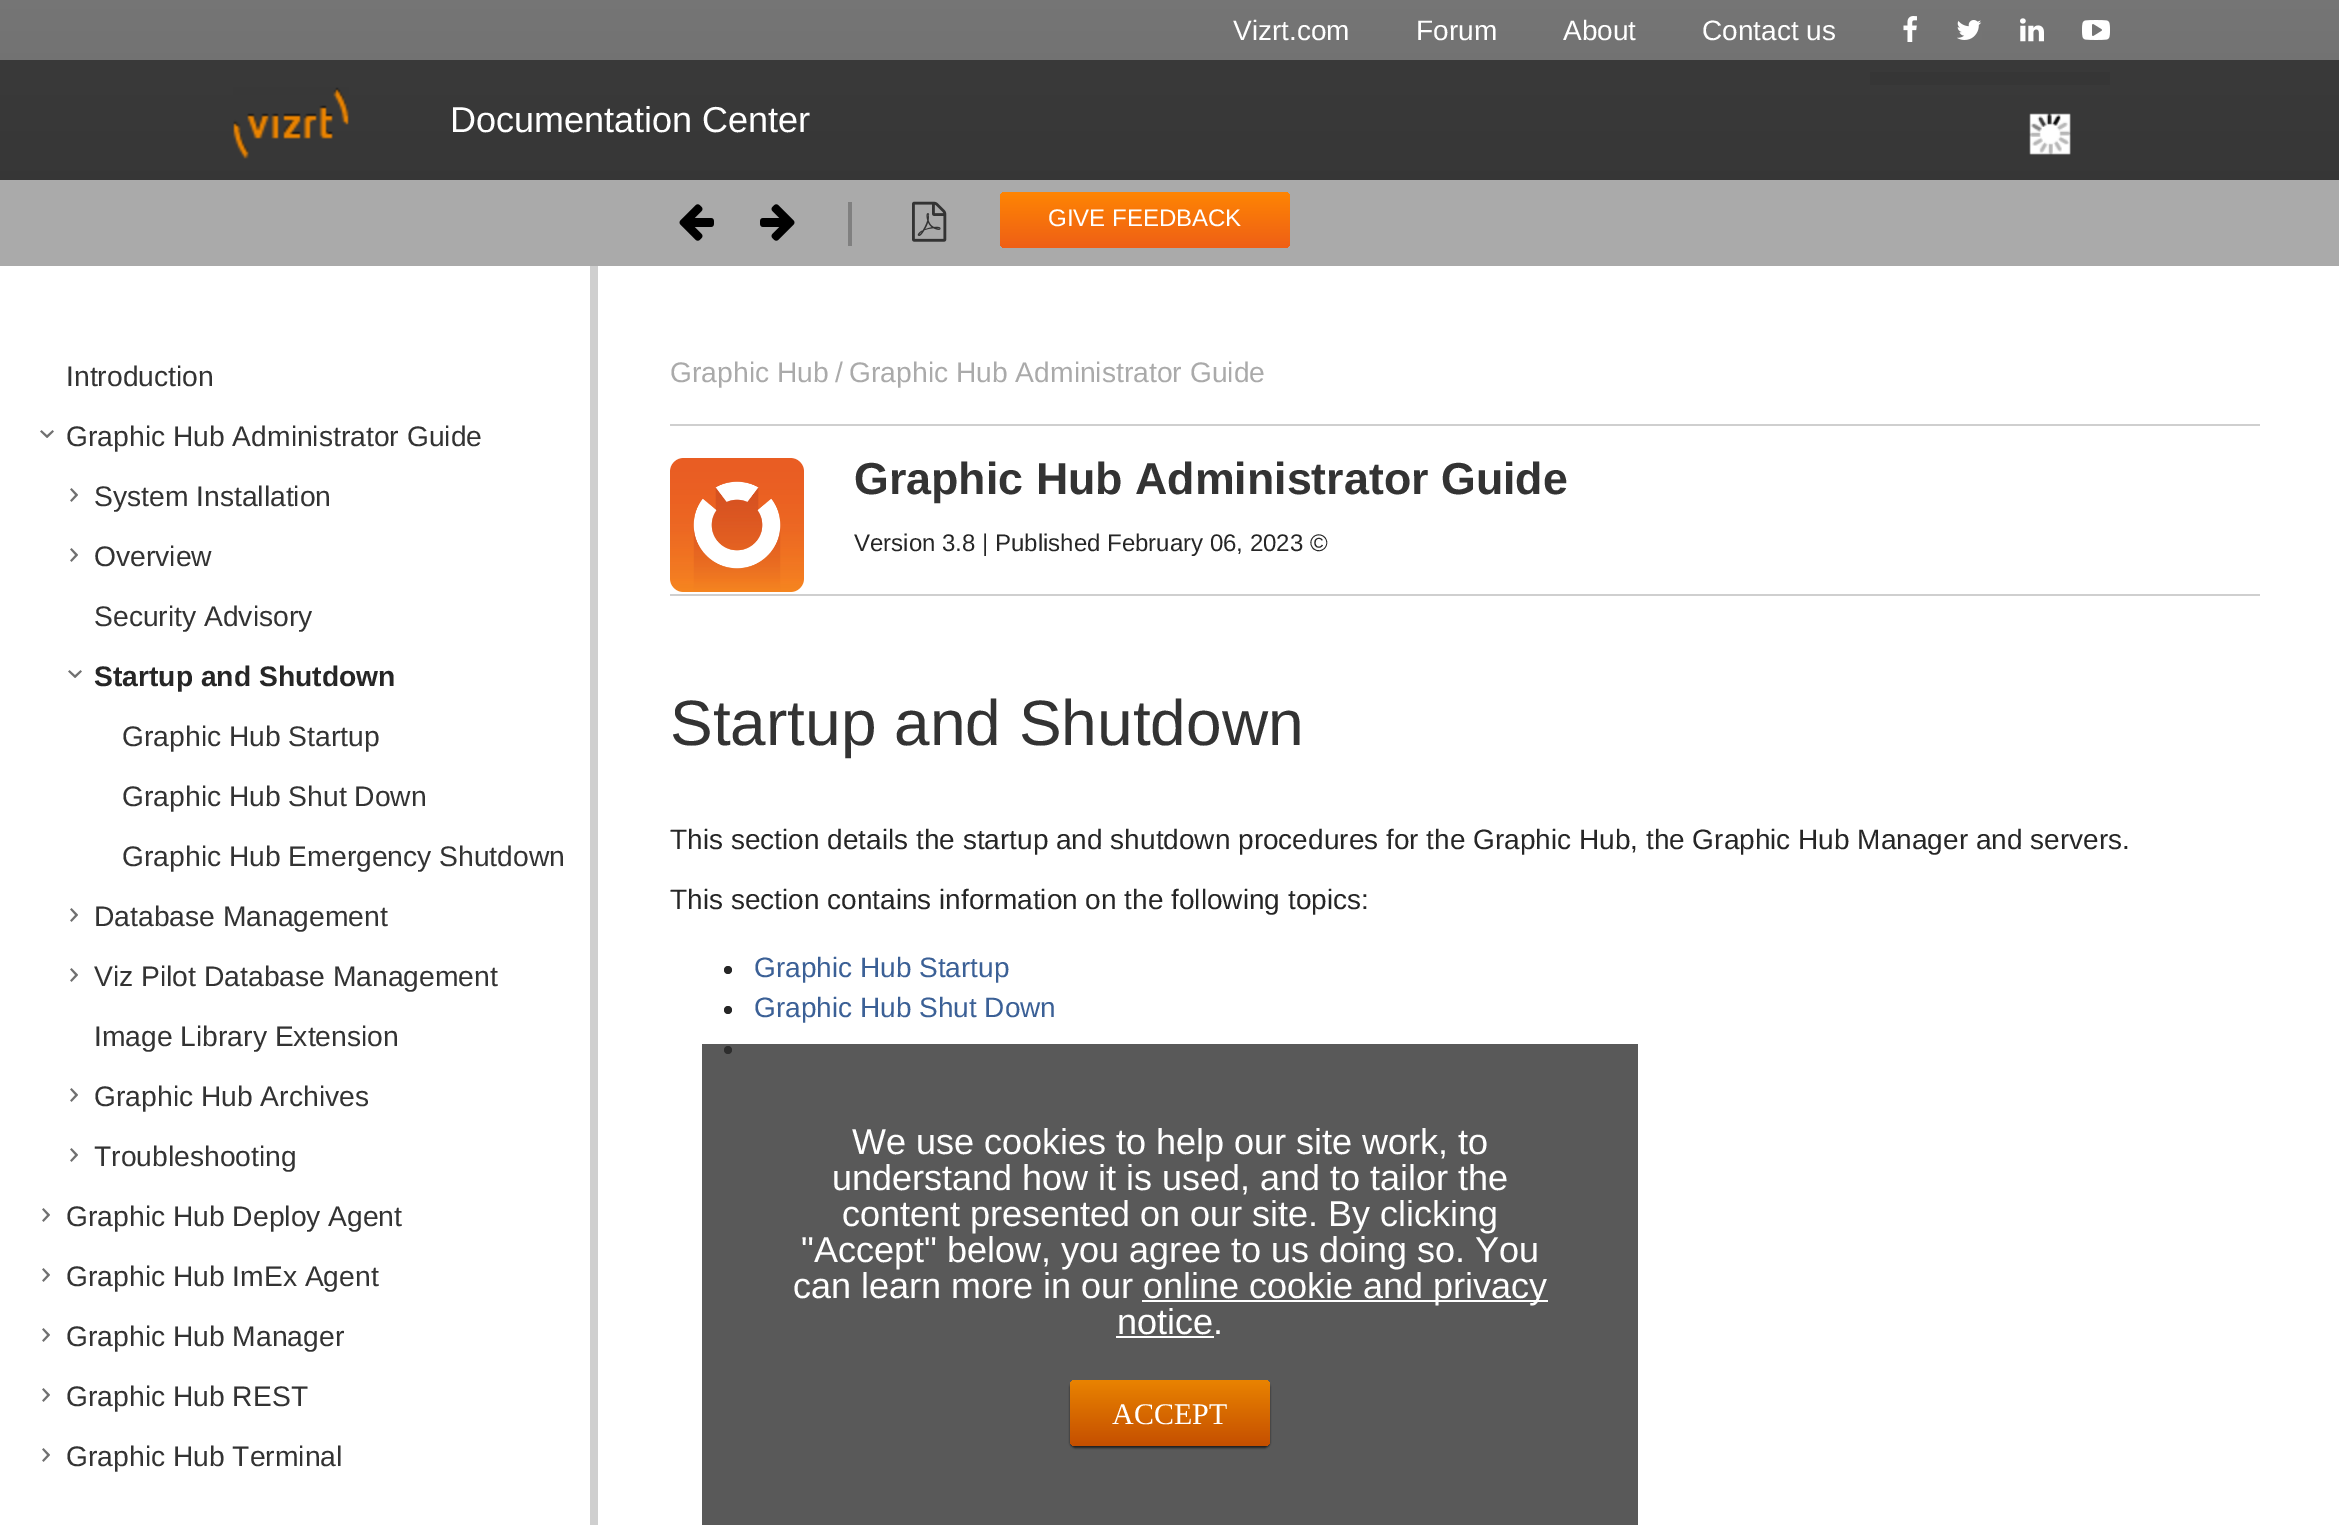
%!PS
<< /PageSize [2339 1525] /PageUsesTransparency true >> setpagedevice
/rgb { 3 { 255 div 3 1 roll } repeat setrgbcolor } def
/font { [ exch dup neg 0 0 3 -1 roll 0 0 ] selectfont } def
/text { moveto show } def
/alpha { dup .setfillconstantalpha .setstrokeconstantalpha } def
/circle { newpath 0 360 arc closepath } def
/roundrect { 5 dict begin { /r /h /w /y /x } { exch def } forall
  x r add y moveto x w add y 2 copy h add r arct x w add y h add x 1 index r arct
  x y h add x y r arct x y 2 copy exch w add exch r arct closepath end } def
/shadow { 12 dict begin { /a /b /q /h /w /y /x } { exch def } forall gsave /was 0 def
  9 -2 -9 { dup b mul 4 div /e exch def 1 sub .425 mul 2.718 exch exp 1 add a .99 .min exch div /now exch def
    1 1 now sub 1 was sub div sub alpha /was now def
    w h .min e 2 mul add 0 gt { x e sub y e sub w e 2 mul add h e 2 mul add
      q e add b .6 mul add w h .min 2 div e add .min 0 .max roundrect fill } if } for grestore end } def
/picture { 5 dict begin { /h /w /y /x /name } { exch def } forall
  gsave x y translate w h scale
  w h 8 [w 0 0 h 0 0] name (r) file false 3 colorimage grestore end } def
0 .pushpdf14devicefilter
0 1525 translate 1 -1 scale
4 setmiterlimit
255 255 255 rgb
0 0 2339 1525 rectfill
(img_01.rgb) 0 0 2339 180 picture
0.5 alpha
0 0 0 rgb
0 0 2339 60 rectfill
1 alpha
(img_02.rgb) 1903 16 14 26 picture
(img_03.rgb) 1957 20 25 20 picture
(img_04.rgb) 2020 18 24 24 picture
(img_05.rgb) 2082 20 28 20 picture
0.75 alpha
0 60 2339 120 rectfill
1 alpha
(img_06.rgb) 233 87 116 72 picture
54 54 54 rgb
1870 72 240 13 rectfill
(img_07.rgb) 2029 113 42 42 picture
170 170 170 rgb
0 180 2339 86 rectfill
(img_08.rgb) 40 430 14 8 picture
(img_09.rgb) 70 488 8 14 picture
(img_09.rgb) 70 548 8 14 picture
(img_08.rgb) 68 670 14 8 picture
(img_09.rgb) 70 908 8 14 picture
(img_09.rgb) 70 968 8 14 picture
(img_09.rgb) 70 1088 8 14 picture
(img_09.rgb) 70 1148 8 14 picture
(img_09.rgb) 42 1208 8 14 picture
(img_09.rgb) 42 1268 8 14 picture
(img_09.rgb) 42 1328 8 14 picture
(img_09.rgb) 42 1388 8 14 picture
(img_09.rgb) 42 1448 8 14 picture
207 207 207 rgb
590 266 8 1259 rectfill
(img_10.rgb) 679 204 35 37 picture
(img_11.rgb) 760 204 35 37 picture
128 128 128 rgb
848 202 4 44 rectfill
(img_12.rgb) 912 201 35 41 picture
gsave 1000 192 290 56 6 roundrect clip newpath
<< /ShadingType 2 /ColorSpace /DeviceRGB /Coords [1145 192 1145 248] /Extend [true true] /Function << /FunctionType 2 /Domain [0 1] /C0 [0.996 0.522 0.012] /C1 [0.937 0.373 0.086] /N 1 >> >> shfill grestore
207 207 207 rgb
670 424 1590 2 rectfill
670 594 1590 2 rectfill
(img_13.rgb) 670 458 134 134 picture
38 38 38 rgb
728 970 4 circle fill
728 1010 4 circle fill
728 1050 4 circle fill
0.8 alpha
47 47 47 rgb
702 1044 936 481 rectfill
1 alpha
255 255 255 rgb
1142 1300 406 2 rectfill
1116 1336 98 2 rectfill
0 0 0 rgb
1070 1382 200 66 6 1 0.65 shadow
gsave 1070 1380 200 66 6 roundrect clip newpath
<< /ShadingType 2 /ColorSpace /DeviceRGB /Coords [1170 1380 1170 1446] /Extend [true true] /Function << /FunctionType 2 /Domain [0 1] /C0 [0.914 0.514 0] /C1 [0.773 0.31 0] /N 1 >> >> shfill grestore
/LiberationSans-Regular 28 font
255 255 255 rgb
(Vizrt.com) 1233 40 text
(Forum) 1416 40 text
(About) 1563 40 text
(Contact us) 1702 40 text
/LiberationSans-Regular 36 font
(Documentation Center) 450 132 text
/LiberationSans-Regular 28.25 font
51 51 51 rgb
(Introduction) 66 386 text
(Graphic Hub Administrator Guide) 66 446 text
(System Installation) 94 506 text
(Overview) 94 566 text
(Security Advisory) 94 626 text
/LiberationSans-Bold 28.25 font
38 38 38 rgb
(Startup and Shutdown) 94 686 text
/LiberationSans-Regular 28.25 font
51 51 51 rgb
(Graphic Hub Startup) 122 746 text
(Graphic Hub Shut Down) 122 806 text
(Graphic Hub Emergency Shutdown) 122 866 text
(Database Management) 94 926 text
(Viz Pilot Database Management) 94 986 text
(Image Library Extension) 94 1046 text
(Graphic Hub Archives) 94 1106 text
(Troubleshooting) 94 1166 text
(Graphic Hub Deploy Agent) 66 1226 text
(Graphic Hub ImEx Agent) 66 1286 text
(Graphic Hub Manager) 66 1346 text
(Graphic Hub REST) 66 1406 text
(Graphic Hub Terminal) 66 1466 text
/LiberationSans-Regular 24 font
255 255 255 rgb
(GIVE FEEDBACK) 1048 226 text
/LiberationSans-Regular 28.25 font
170 170 170 rgb
(Graphic Hub) 670 382 text
(/) 835 382 text
(Graphic Hub Administrator Guide) 849 382 text
/LiberationSans-Bold 44.75 font
51 51 51 rgb
(Graphic Hub Administrator Guide) 854 494 text
/LiberationSans-Regular 24 font
38 38 38 rgb
(Version 3.8 | Published February 06, 2023 ©) 854 551 text
/LiberationSans-Regular 64 font
51 51 51 rgb
(Startup and Shutdown) 670 745 text
/LiberationSans-Regular 28 font
38 38 38 rgb
(This section details the startup and shutdown procedures for the Graphic Hub, the Graphic Hub Manager and servers.) 670 849 text
(This section contains information on the following topics:) 670 909 text
59 96 150 rgb
(Graphic Hub Startup) 754 977 text
(Graphic Hub Shut Down) 754 1017 text
/LiberationSans-Regular 36 font
255 255 255 rgb
(We use cookies to help our site work, to) 852 1154 text
(understand how it is used, and to tailor the) 832 1190 text
(content presented on our site. By clicking) 842 1226 text
("Accept" below, you agree to us doing so. You) 801 1262 text
(can learn more in our) 793 1298 text
(online cookie and privacy) 1143 1298 text
(notice.) 1117 1334 text
/LiberationSerif-Regular 30 font
(ACCEPT) 1112 1424 text
.poppdf14devicefilter showpage
